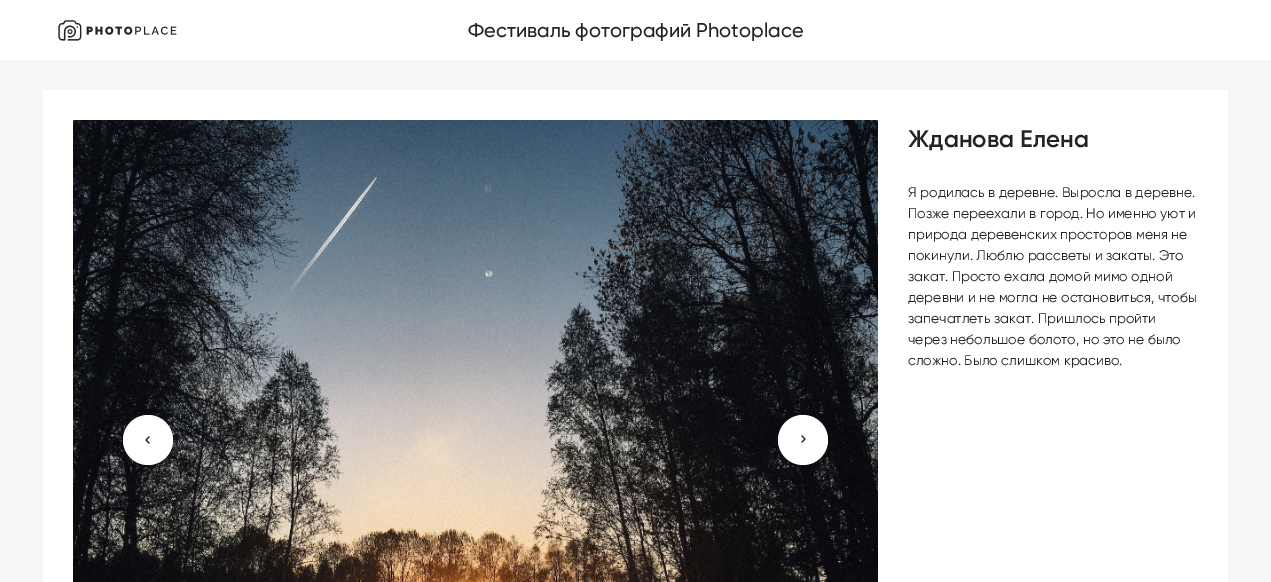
%!PS
<< /PageSize [1271 582] /PageUsesTransparency true >> setpagedevice
/rgb { 3 { 255 div 3 1 roll } repeat setrgbcolor } def
/font { [ exch dup neg 0 0 3 -1 roll 0 0 ] selectfont } def
/text { moveto show } def
/alpha { dup .setfillconstantalpha .setstrokeconstantalpha } def
/circle { newpath 0 360 arc closepath } def
/roundrect { 5 dict begin { /r /h /w /y /x } { exch def } forall
  x r add y moveto x w add y 2 copy h add r arct x w add y h add x 1 index r arct
  x y h add x y r arct x y 2 copy exch w add exch r arct closepath end } def
/shadow { 12 dict begin { /a /b /q /h /w /y /x } { exch def } forall gsave /was 0 def
  9 -2 -9 { dup b mul 4 div /e exch def 1 sub .425 mul 2.718 exch exp 1 add a .99 .min exch div /now exch def
    1 1 now sub 1 was sub div sub alpha /was now def
    w h .min e 2 mul add 0 gt { x e sub y e sub w e 2 mul add h e 2 mul add
      q e add b .6 mul add w h .min 2 div e add .min 0 .max roundrect fill } if } for grestore end } def
/picture { 5 dict begin { /h /w /y /x /name } { exch def } forall
  gsave x y translate w h scale
  w h 8 [w 0 0 h 0 0] name (r) file false 3 colorimage grestore end } def
0 .pushpdf14devicefilter
0 582 translate 1 -1 scale
4 setmiterlimit
246 246 246 rgb
0 0 1271 582 rectfill
255 255 255 rgb
0 0 1271 60 rectfill
(img_01.rgb) 58 20 119 21 picture
43 90 1185 492 rectfill
68 68 68 rgb
73 120 805 4 rectfill
(img_02.rgb) 73 120 805 462 picture
0 0 0 rgb
123 429 50 50 25 9.5 0.09 shadow
255 255 255 rgb
148 440 25 circle fill
(img_03.rgb) 145 436 5 8 picture
0 0 0 rgb
778 429 50 50 25 9.5 0.09 shadow
255 255 255 rgb
803 440 25 circle fill
(img_04.rgb) 801 435 5 8 picture
/Gilroy-Medium 20 font
35 35 38 rgb
(Фестиваль фотографий Photoplace) 468 37 text
/Gilroy-SemiBold 24 font
(Жданова Елена) 908 147 text
/Gilroy-Regular 14 font
(Я родилась в деревне. Выросла в деревне.) 908 197 text
(Позже переехали в город. Но именно уют и) 908 218 text
(природа деревенских просторов меня не) 908 239 text
(покинули. Люблю рассветы и закаты. Это) 908 260 text
(закат. Просто ехала домой мимо одной) 908 281 text
(деревни и не могла не остановиться, чтобы) 908 302 text
(запечатлеть закат. Пришлось пройти) 908 323 text
(через небольшое болото, но это не было) 908 344 text
(сложно. Было слишком красиво.) 908 365 text
.poppdf14devicefilter showpage
